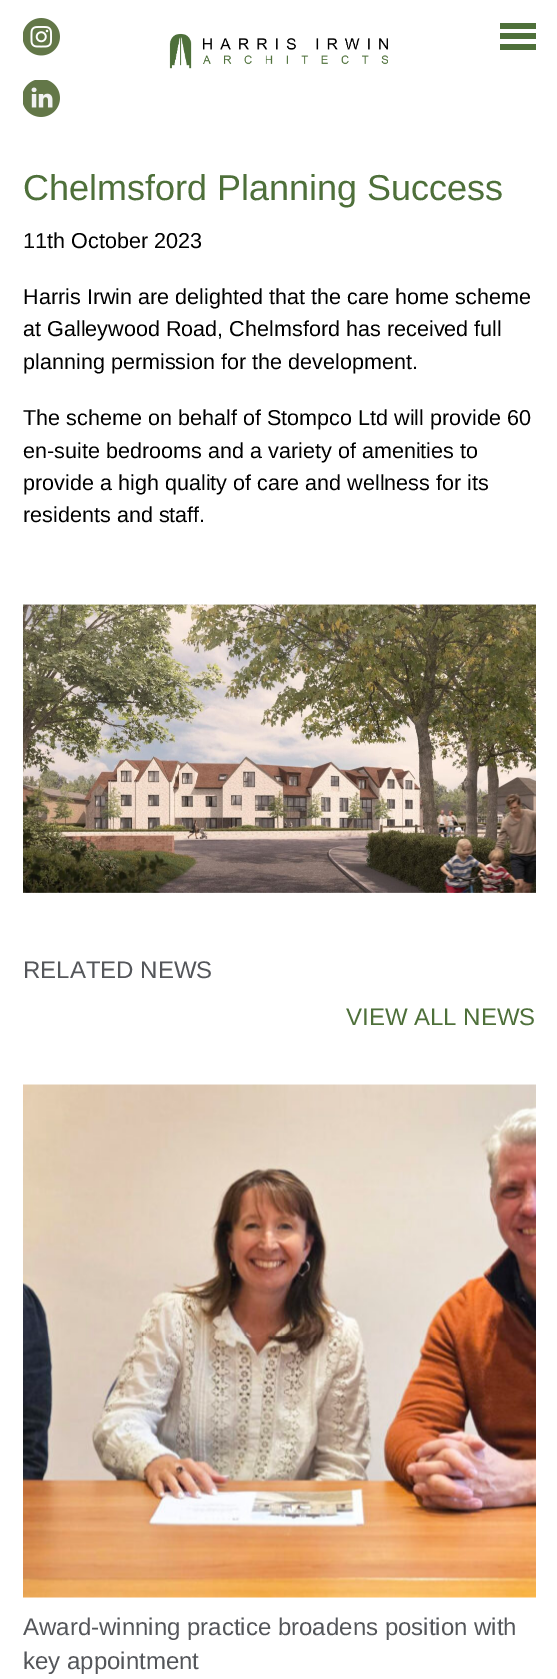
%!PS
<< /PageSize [557 1679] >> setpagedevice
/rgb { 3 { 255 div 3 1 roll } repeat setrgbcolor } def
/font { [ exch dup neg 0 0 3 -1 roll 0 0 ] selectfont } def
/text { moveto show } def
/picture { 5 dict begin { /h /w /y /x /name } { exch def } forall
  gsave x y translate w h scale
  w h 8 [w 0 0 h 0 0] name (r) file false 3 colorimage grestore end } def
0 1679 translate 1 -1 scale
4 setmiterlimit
255 255 255 rgb
0 0 557 1679 rectfill
(img_01.rgb) 23 18 37 38 picture
(img_02.rgb) 23 80 37 37 picture
(img_03.rgb) 169 33 219 36 picture
78 112 58 rgb
500 44 36 6 rectfill
500 33 36 6 rectfill
500 23 36 6 rectfill
(img_04.rgb) 23 604 513 289 picture
(img_05.rgb) 23 1084 513 514 picture
/LiberationSans-Regular 36 font
(Chelmsford Planning Success) 23 200 text
/LiberationSans-Regular 21.6 font
0 0 0 rgb
(11th October 2023) 23 248 text
(Harris Irwin are delighted that the care home scheme) 23 304 text
(at Galleywood Road, Chelmsford has received full) 23 336 text
(planning permission for the development.) 23 369 text
(The scheme on behalf of Stompco Ltd will provide 60) 23 425 text
(en-suite bedrooms and a variety of amenities to) 23 458 text
(provide a high quality of care and wellness for its) 23 490 text
(residents and staff.) 23 522 text
/LiberationSans-Regular 24 font
84 86 90 rgb
(RELATED NEWS) 23 978 text
78 112 58 rgb
(VIEW ALL NEWS) 346 1025 text
84 86 90 rgb
(Award-winning practice broadens position with) 23 1635 text
(key appointment) 23 1669 text
showpage
